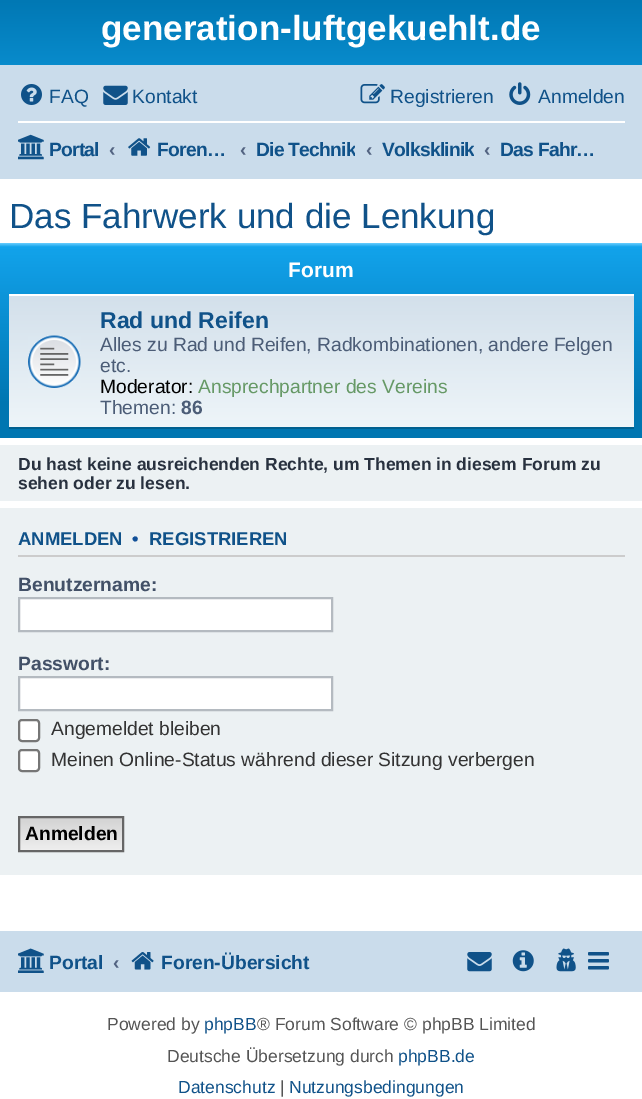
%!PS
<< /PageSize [642 1099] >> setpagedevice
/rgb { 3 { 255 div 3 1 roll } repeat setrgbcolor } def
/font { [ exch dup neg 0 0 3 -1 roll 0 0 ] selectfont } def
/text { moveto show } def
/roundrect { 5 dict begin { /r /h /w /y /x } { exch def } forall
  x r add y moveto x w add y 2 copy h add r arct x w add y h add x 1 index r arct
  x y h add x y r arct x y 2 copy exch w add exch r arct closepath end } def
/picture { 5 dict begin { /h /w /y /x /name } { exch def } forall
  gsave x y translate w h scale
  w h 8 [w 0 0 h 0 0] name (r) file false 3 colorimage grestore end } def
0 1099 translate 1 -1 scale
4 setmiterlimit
255 255 255 rgb
0 0 642 1099 rectfill
gsave 0 0 moveto 642 0 rlineto 0 65 rlineto -642 0 rlineto closepath clip newpath
<< /ShadingType 2 /ColorSpace /DeviceRGB /Coords [321 -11 321 151] /Extend [true true] /Function << /FunctionType 3 /Domain [0 1] /Functions [<< /FunctionType 2 /Domain [0 1] /C0 [0.416 0.808 1] /C1 [0 0.463 0.694] /N 1 >> << /FunctionType 2 /Domain [0 1] /C0 [0 0.463 0.694] /C1 [0.071 0.639 0.922] /N 1 >>] /Bounds [0.02] /Encode [0 1 0 1] >> >> shfill grestore
202 220 235 rgb
0 65 642 114 rectfill
(img_01.rgb) 21 84 21 21 picture
(img_02.rgb) 103 85 25 20 picture
(img_03.rgb) 360 84 25 20 picture
(img_04.rgb) 509 82 22 23 picture
255 255 255 rgb
18 121 607 2 rectfill
(img_05.rgb) 18 134 26 26 picture
(img_06.rgb) 128 138 23 18 picture
gsave 0 243 moveto 642 0 rlineto 0 195 rlineto -642 0 rlineto closepath clip newpath
<< /ShadingType 2 /ColorSpace /DeviceRGB /Coords [321 243 321 438] /Extend [true true] /Function << /FunctionType 3 /Domain [0 1] /Functions [<< /FunctionType 2 /Domain [0 1] /C0 [0.416 0.808 1] /C1 [0.071 0.639 0.922] /N 1 >> << /FunctionType 2 /Domain [0 1] /C0 [0.071 0.639 0.922] /C1 [0 0.463 0.694] /N 1 >> << /FunctionType 2 /Domain [0 1] /C0 [0 0.463 0.694] /C1 [0 0.463 0.694] /N 1 >>] /Bounds [0.02 0.83] /Encode [0 1 0 1 0 1] >> >> shfill grestore
gsave 9 296 moveto 625 0 rlineto 0 131 rlineto -625 0 rlineto closepath clip newpath
<< /ShadingType 2 /ColorSpace /DeviceRGB /Coords [321 294 321 429] /Extend [true true] /Function << /FunctionType 2 /Domain [0 1] /C0 [0.824 0.878 0.922] /C1 [0.933 0.961 0.976] /N 1 >> >> shfill grestore
9 294 625 2 rectfill
0 96 143 rgb
9 427 625 2 rectfill
(img_07.rgb) 28 335 53 53 picture
236 241 243 rgb
0 445 642 56 rectfill
0 508 642 367 rectfill
204 204 204 rgb
18 555 607 2 rectfill
255 255 255 rgb
19 598 moveto 313 0 rlineto 0 33 rlineto -313 0 rlineto closepath gsave fill grestore
180 186 192 rgb
2 setlinewidth
stroke
255 255 255 rgb
19 677 moveto 313 0 rlineto 0 33 rlineto -313 0 rlineto closepath gsave fill grestore
180 186 192 rgb
stroke
255 255 255 rgb
19 720 20 21 3 roundrect gsave fill grestore
118 118 118 rgb
stroke
255 255 255 rgb
19 750 20 21 3 roundrect gsave fill grestore
118 118 118 rgb
stroke
gsave 20 818 moveto 102 0 rlineto 0 32 rlineto -102 0 rlineto closepath clip newpath
<< /ShadingType 2 /ColorSpace /DeviceRGB /Coords [71 817 71 851] /Extend [true true] /Function << /FunctionType 2 /Domain [0 1] /C0 [0.824 0.824 0.824] /C1 [0.937 0.937 0.937] /N 1 >> >> shfill grestore
102 102 102 rgb
19 817 104 34 rectstroke
202 220 235 rgb
0 931 642 61 rectfill
(img_08.rgb) 18 948 26 25 picture
(img_09.rgb) 131 952 23 18 picture
(img_10.rgb) 467 952 25 20 picture
(img_11.rgb) 512 950 22 22 picture
(img_12.rgb) 556 948 20 24 picture
(img_13.rgb) 588 952 21 18 picture
/LiberationSans-Bold 35 font
255 255 255 rgb
(generation-luftgekuehlt.de) 101 40 text
/LiberationSans-Regular 19.25 font
16 82 137 rgb
(FAQ) 49 103 text
(Kontakt) 132 103 text
(Registrieren) 390 103 text
(Anmelden) 538 103 text
/LiberationSans-Bold 19.25 font
49 156 moveto -0.75 0 (Portal) ashow
83 100 130 rgb
(‹) 109 156 text
16 82 137 rgb
157 156 moveto -0.75 0 (Foren…) ashow
83 100 130 rgb
(‹) 240 156 text
gsave
256 128 99 42 rectclip
16 82 137 rgb
256 156 moveto -0.75 0 (Die Technik) ashow
grestore
(‹) 366 156 text
gsave
382 128 92 42 rectclip
16 82 137 rgb
382 156 moveto -0.75 0 (Volksklinik) ashow
grestore
(‹) 484 156 text
16 82 137 rgb
500 156 moveto -0.75 0 (Das Fahr…) ashow
/LiberationSans-Regular 35 font
(Das Fahrwerk und die Lenkung) 9 228 text
/LiberationSans-Bold 21 font
255 255 255 rgb
(Forum) 288 277 text
/LiberationSans-Bold 23 font
16 82 137 rgb
(Rad und Reifen) 100 328 text
/LiberationSans-Regular 19.25 font
76 93 119 rgb
(Alles zu Rad und Reifen, Radkombinationen, andere Felgen) 100 351 text
(etc.) 100 372 text
0 0 0 rgb
(Moderator:) 100 393 text
102 153 102 rgb
(Ansprechpartner des Vereins) 198 393 text
76 93 119 rgb
(Themen:) 100 414 text
/LiberationSans-Bold 19.25 font
(86) 181 414 text
/LiberationSans-Bold 17.5 font
40 49 63 rgb
(Du hast keine ausreichenden Rechte, um Themen in diesem Forum zu) 18 470 text
(sehen oder zu lesen.) 18 489 text
/LiberationSans-Bold 18.5 font
16 82 137 rgb
(ANMELDEN) 18 545 text
17 80 152 rgb
(•) 132 545 text
16 82 137 rgb
(REGISTRIEREN) 149 545 text
/LiberationSans-Bold 19.25 font
66 80 103 rgb
(Benutzername:) 18 591 text
(Passwort:) 18 670 text
/LiberationSans-Regular 19.25 font
51 51 51 rgb
(Angemeldet bleiben) 51 735 text
(Meinen Online-Status während dieser Sitzung verbergen) 51 766 text
/LiberationSans-Bold 19.25 font
0 0 0 rgb
(Anmelden) 25 840 text
16 82 137 rgb
(Portal) 49 969 text
83 100 130 rgb
(‹) 113 969 text
16 82 137 rgb
(Foren-Übersicht) 161 969 text
/LiberationSans-Regular 17.5 font
85 85 85 rgb
(Powered by) 107 1030 text
16 82 137 rgb
(phpBB) 204 1030 text
85 85 85 rgb
(® Forum Software © phpBB Limited) 257 1030 text
(Deutsche Übersetzung durch) 167 1062 text
16 82 137 rgb
(phpBB.de) 398 1062 text
(Datenschutz) 178 1093 text
85 85 85 rgb
(|) 280 1093 text
16 82 137 rgb
(Nutzungsbedingungen) 289 1093 text
showpage
